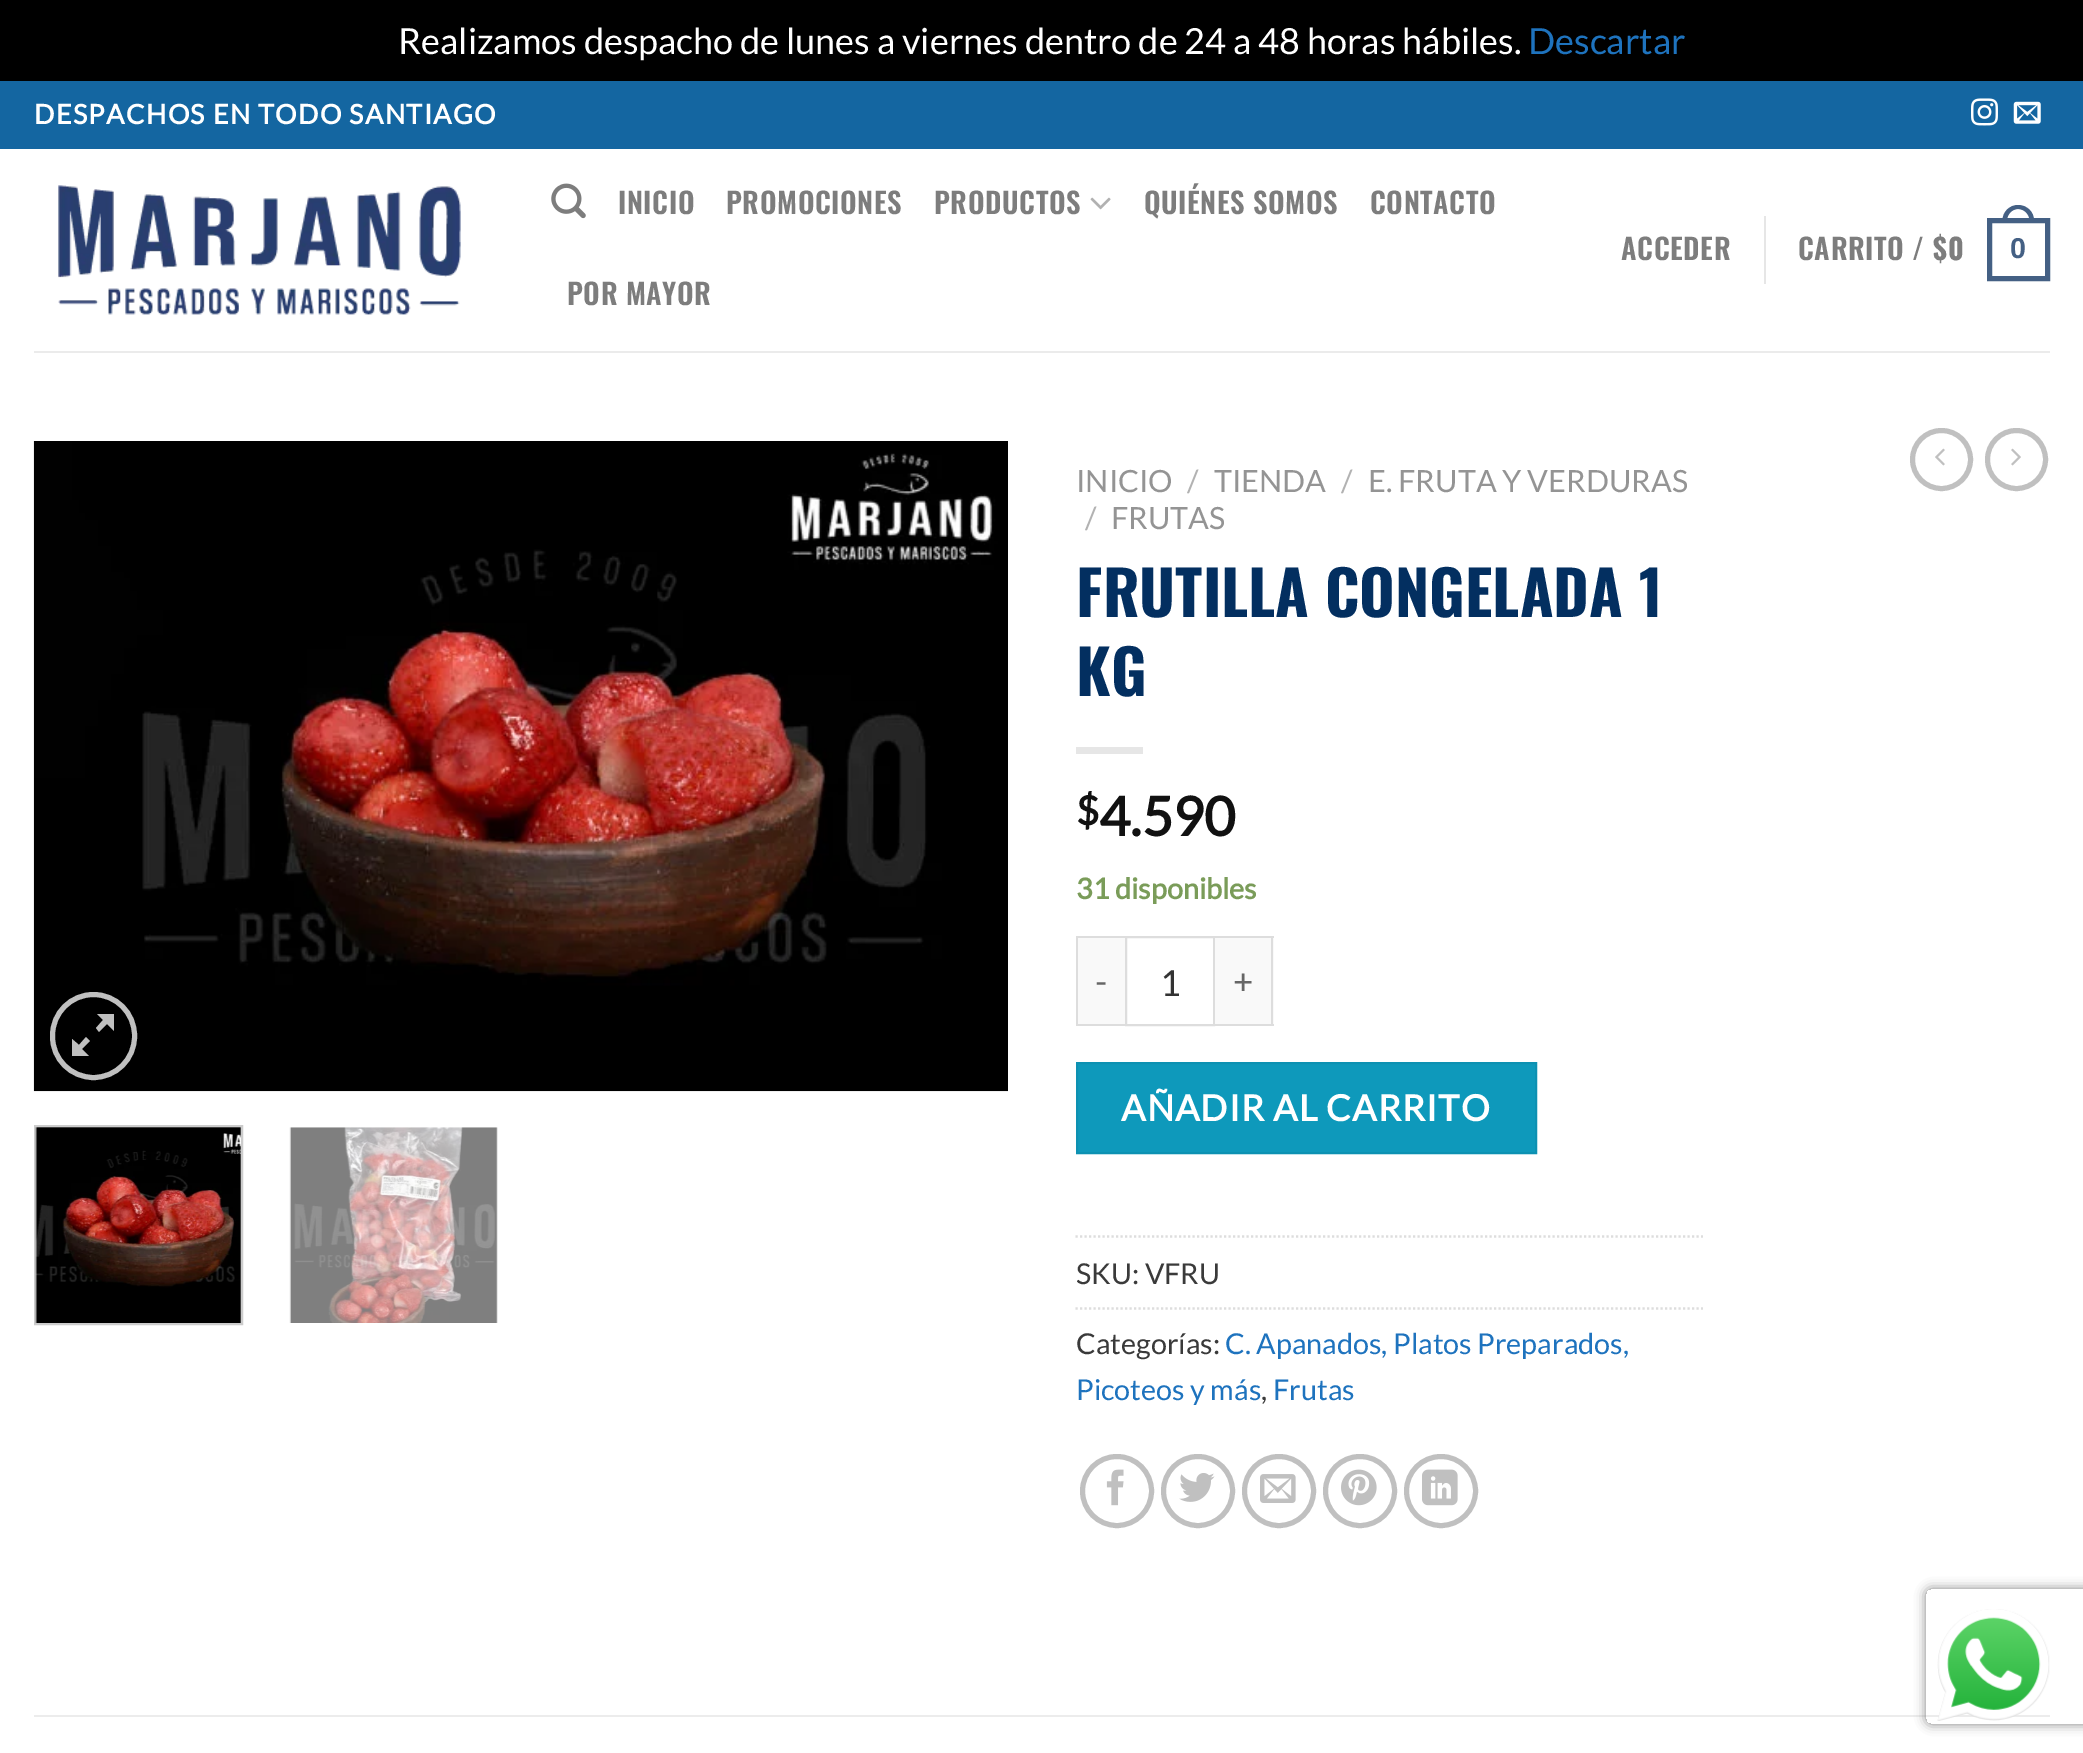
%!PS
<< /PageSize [2083 1753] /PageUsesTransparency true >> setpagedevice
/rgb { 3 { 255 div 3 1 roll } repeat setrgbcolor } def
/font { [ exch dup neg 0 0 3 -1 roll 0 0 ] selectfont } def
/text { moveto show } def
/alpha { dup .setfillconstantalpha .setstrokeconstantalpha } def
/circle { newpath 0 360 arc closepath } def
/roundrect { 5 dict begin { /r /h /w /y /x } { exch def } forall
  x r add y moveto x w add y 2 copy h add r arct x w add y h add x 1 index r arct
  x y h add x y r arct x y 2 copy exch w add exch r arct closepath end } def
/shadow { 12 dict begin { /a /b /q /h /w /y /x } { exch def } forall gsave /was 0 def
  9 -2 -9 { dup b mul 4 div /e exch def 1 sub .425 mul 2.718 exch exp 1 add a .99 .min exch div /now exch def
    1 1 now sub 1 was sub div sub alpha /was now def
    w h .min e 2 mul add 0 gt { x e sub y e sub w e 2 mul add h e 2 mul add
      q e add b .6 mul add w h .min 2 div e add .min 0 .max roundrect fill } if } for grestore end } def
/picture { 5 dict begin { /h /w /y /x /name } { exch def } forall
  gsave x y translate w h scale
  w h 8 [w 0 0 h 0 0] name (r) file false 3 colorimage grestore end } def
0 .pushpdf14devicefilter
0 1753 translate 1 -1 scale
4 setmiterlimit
0 0 0 rgb
0 0 2083 1753 rectfill
255 255 255 rgb
0 149 2083 1604 rectfill
20 102 161 rgb
0 81 2083 68 rectfill
(img_01.rgb) 1971 98 27 28 picture
(img_02.rgb) 2013 101 28 23 picture
(img_03.rgb) 58 185 403 130 picture
(img_04.rgb) 551 183 35 36 picture
(img_05.rgb) 1090 197 21 13 picture
230 230 230 rgb
1764 216 2 68 rectfill
68 96 132 rgb
5 setlinewidth
1989.5 220.5 58 58 rectstroke
2018 205 moveto 9 0 16 7 16 15.5 rcurveto 0 2.5 rlineto -31.5 0 rlineto 0 -2.5 rlineto 0 -8.5 7 -15.5 15.5 -15.5 rcurveto closepath 2018 209 moveto 6.5 0 11.5 5.5 11.5 11.5 rcurveto 0 2.5 rlineto -22.5 0 rlineto 0 -2.5 rlineto 0 -6 5 -11.5 11 -11.5 rcurveto closepath eofill
235 235 235 rgb
34 351 2016 2 rectfill
(img_06.rgb) 33 441 975 651 picture
192 192 192 rgb
52.5 994.5 82 83 41 roundrect stroke
114 1014 moveto 0 17 rlineto -7 -7 rlineto -8 8 rlineto -3 -4 rlineto 7 -8 rlineto -6 -6 rlineto closepath 90 1041 moveto -8 8 rlineto 7 7 rlineto -17 0 rlineto 0 -17 rlineto 7 6 rlineto 7 -8 rlineto closepath fill
204 204 204 rgb
2 setlinewidth
35 1126 207 198 rectstroke
(img_07.rgb) 35 1127 206 196 picture
(img_08.rgb) 289 1127 209 196 picture
230 230 230 rgb
1076 747 67 7 rectfill
249 249 249 rgb
1078 938 47 86 rectfill
221 221 221 rgb
1076 936 49 2 rectfill
1076 1024 49 2 rectfill
1076 936 2 90 rectfill
1126 937 88 88 rectstroke
249 249 249 rgb
1215 938 59 86 rectfill
221 221 221 rgb
1215 936 59 2 rectfill
1271 936 2 90 rectfill
1215 1024 59 2 rectfill
14 153 187 rgb
1077 1063 moveto 459 0 rlineto 0 90 rlineto -459 0 rlineto closepath gsave fill grestore
13 145 178 rgb
stroke
221 221 221 rgb
2.2 setlinewidth
[2.25 2.25] 0 setdash
1075.5 1236.5 moveto 627.5 0 rlineto stroke
1075.5 1308.5 moveto 627.5 0 rlineto stroke
192 192 192 rgb
5 setlinewidth
[] 0 setdash
1117 1491 34.5 circle stroke
(img_09.rgb) 1106 1469 18 37 picture
1198 1491 34.5 circle stroke
(img_10.rgb) 1179 1473 36 29 picture
1279 1491 34.5 circle stroke
(img_11.rgb) 1260 1474 36 29 picture
1360 1491 34.5 circle stroke
(img_12.rgb) 1341 1469 36 37 picture
1441 1491 34.5 circle stroke
(img_13.rgb) 1422 1469 36 37 picture
1941.5 459.5 29 circle stroke
(img_14.rgb) 1935 448 10 18 picture
2016.5 459.5 29 circle stroke
(img_15.rgb) 2011 448 10 18 picture
236 236 236 rgb
34 1715 2016 2 rectfill
gsave
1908 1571 moveto 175 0 rlineto 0 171 rlineto -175 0 rlineto closepath 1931 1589 moveto 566 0 rlineto 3 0 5 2 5 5 rcurveto 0 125 rlineto 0 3 -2 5 -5 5 rcurveto -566 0 rlineto -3 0 -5 -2 -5 -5 rcurveto 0 -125 rlineto 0 -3 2 -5 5 -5 rcurveto closepath eoclip newpath
128 128 128 rgb
1926 1589 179 135 5 5.5 1 shadow
grestore
(img_16.rgb) 1937 1609 113 112 picture
/Lato-Regular 36 font
255 255 255 rgb
(Realizamos despacho de lunes a viernes dentro de 24 a 48 horas hábiles.) 398 54 text
30 115 190 rgb
(Descartar) 1528 54 text
/Lato-Bold 27 font
255 255 255 rgb
34 124 moveto 1.35 0 (DESPACHOS EN TODO SANTIAGO) ashow
/Oswald-SemiBold 28.75 font
125 125 125 rgb
618 214 moveto 0.6 0 (INICIO) ashow
726 214 moveto 0.6 0 (PROMOCIONES) ashow
934 214 moveto 0.6 0 (PRODUCTOS) ashow
1144 214 moveto 0.6 0 (QUIÉNES SOMOS) ashow
1370 214 moveto 0.6 0 (CONTACTO) ashow
567 305 moveto 0.6 0 (POR MAYOR) ashow
1621 260 moveto 0.6 0 (ACCEDER) ashow
1798 260 moveto 0.6 0 (CARRITO /) ashow
/Oswald-Bold 28.75 font
1933 260 moveto 0.6 0 ($0) ashow
/LiberationSans-Bold 28.75 font
68 96 132 rgb
2010 258 moveto 0.6 0 (0) ashow
/Lato-Regular 30.6 font
148 148 148 rgb
(INICIO) 1076 492 text
178 178 178 rgb
(/) 1187 492 text
148 148 148 rgb
(TIENDA) 1214 492 text
178 178 178 rgb
(/) 1341 492 text
148 148 148 rgb
(E. FRUTA Y VERDURAS) 1368 492 text
178 178 178 rgb
(/) 1085 529 text
148 148 148 rgb
(FRUTAS) 1111 529 text
/Oswald-Bold 61.25 font
3 47 96 rgb
(FRUTILLA CONGELADA 1) 1076 617 text
(KG) 1076 696 text
/Lato-Bold 40 font
17 17 17 rgb
($) 1076 825 text
/Lato-Bold 54 font
(4.590) 1099 836 text
/Lato-Bold 28.75 font
122 156 89 rgb
(31 disponibles) 1076 899 text
/Lato-Regular 35 font
102 102 102 rgb
1095 994 moveto 1 0 (-) ashow
/Lato-Regular 36 font
51 51 51 rgb
(1) 1160 996 text
/Lato-Regular 35 font
102 102 102 rgb
1233 994 moveto 1 0 (+) ashow
/Lato-Bold 36 font
255 255 255 rgb
1121 1121 moveto 1.1 0 (AÑADIR AL CARRITO) ashow
/Lato-Regular 28.75 font
58 58 58 rgb
(SKU: VFRU) 1076 1284 text
(Categorías:) 1076 1354 text
30 115 190 rgb
(C. Apanados, Platos Preparados,) 1225 1354 text
(Picoteos y más) 1076 1400 text
58 58 58 rgb
(,) 1261 1400 text
30 115 190 rgb
(Frutas) 1273 1400 text
.poppdf14devicefilter showpage
